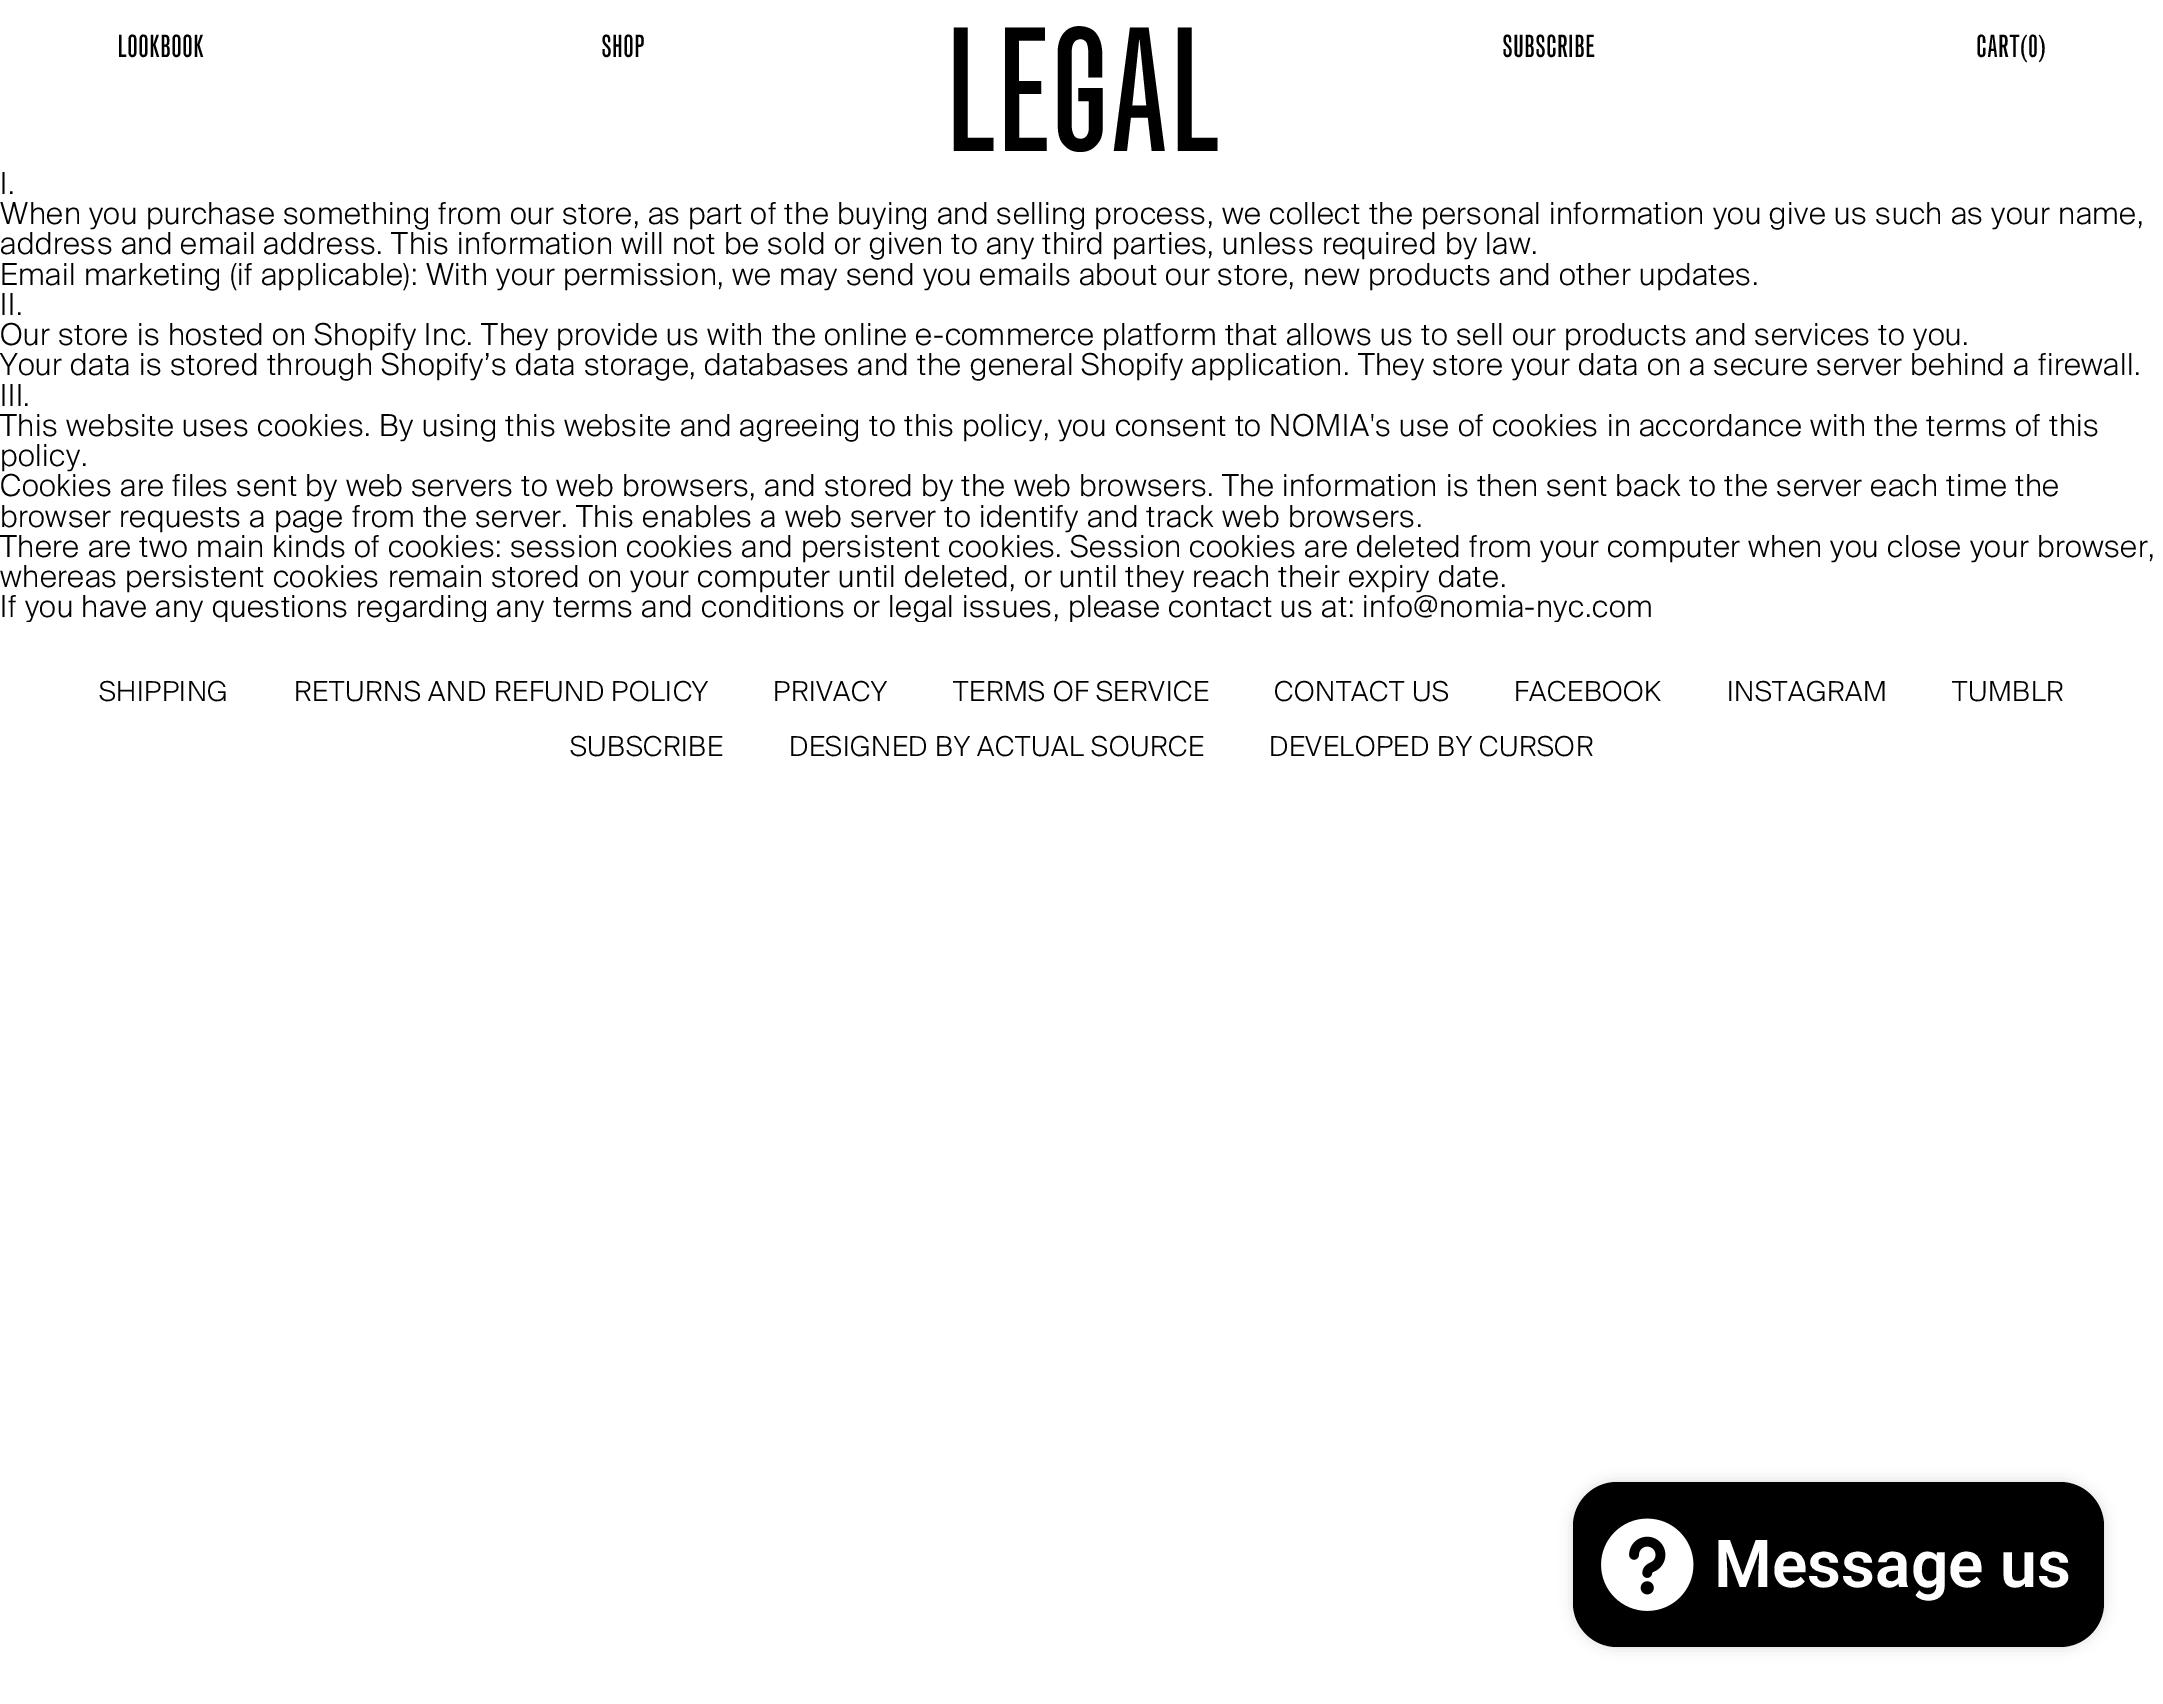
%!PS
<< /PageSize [2163 1704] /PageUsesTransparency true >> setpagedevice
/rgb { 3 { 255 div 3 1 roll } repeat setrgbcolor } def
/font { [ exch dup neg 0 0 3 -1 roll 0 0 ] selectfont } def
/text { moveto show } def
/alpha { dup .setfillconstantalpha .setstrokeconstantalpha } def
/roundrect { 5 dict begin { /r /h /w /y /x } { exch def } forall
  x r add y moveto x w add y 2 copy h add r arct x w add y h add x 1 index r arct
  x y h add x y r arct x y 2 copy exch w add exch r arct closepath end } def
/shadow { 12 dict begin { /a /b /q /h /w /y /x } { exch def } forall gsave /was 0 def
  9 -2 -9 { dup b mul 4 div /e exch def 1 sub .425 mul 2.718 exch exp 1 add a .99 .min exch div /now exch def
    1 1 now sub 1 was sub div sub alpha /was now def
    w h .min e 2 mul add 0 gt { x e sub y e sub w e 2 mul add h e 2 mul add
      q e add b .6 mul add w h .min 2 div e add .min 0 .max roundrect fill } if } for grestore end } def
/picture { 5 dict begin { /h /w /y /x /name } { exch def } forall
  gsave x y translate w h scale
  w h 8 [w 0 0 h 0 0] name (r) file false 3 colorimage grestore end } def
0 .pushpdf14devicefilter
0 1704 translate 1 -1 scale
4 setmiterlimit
255 255 255 rgb
0 0 2163 1704 rectfill
0 0 0 rgb
1573 1482 531 165 44 7 0.15 shadow
1573 1482 531 165 44 roundrect fill
(img_01.rgb) 1601 1518 93 93 picture
/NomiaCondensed-Regular 169 font
943 151 moveto 0.6 0 (LEGAL) ashow
/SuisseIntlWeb-Light 30.25 font
0 194 moveto 0.6 0 (I.) ashow
0 224 moveto 0.6 0 (When you purchase something from our store, as part of the buying and selling process, we collect the personal information you give us such as your name,) ashow
0 254 moveto 0.6 0 (address and email address. This information will not be sold or given to any third parties, unless required by law.) ashow
0 285 moveto 0.6 0 (Email marketing \(if applicable\): With your permission, we may send you emails about our store, new products and other updates.) ashow
0 315 moveto 0.6 0 (II.) ashow
0 345 moveto 0.6 0 (Our store is hosted on Shopify Inc. They provide us with the online e-commerce platform that allows us to sell our products and services to you.) ashow
0 375 moveto 0.6 0 (Your data is stored through Shopify’s data storage, databases and the general Shopify application. They store your data on a secure server behind a firewall.) ashow
0 406 moveto 0.6 0 (III.) ashow
0 436 moveto 0.6 0 (This website uses cookies. By using this website and agreeing to this policy, you consent to NOMIA's use of cookies in accordance with the terms of this) ashow
0 466 moveto 0.6 0 (policy.) ashow
0 496 moveto 0.6 0 (Cookies are files sent by web servers to web browsers, and stored by the web browsers. The information is then sent back to the server each time the) ashow
0 527 moveto 0.6 0 (browser requests a page from the server. This enables a web server to identify and track web browsers.) ashow
0 557 moveto 0.6 0 (There are two main kinds of cookies: session cookies and persistent cookies. Session cookies are deleted from your computer when you close your browser,) ashow
0 587 moveto 0.6 0 (whereas persistent cookies remain stored on your computer until deleted, or until they reach their expiry date.) ashow
0 617 moveto 0.6 0 (If you have any questions regarding any terms and conditions or legal issues, please contact us at: info@nomia-nyc.com) ashow
/NomiaCondensed-Regular 30.5 font
117 57 moveto 0.5 0 (LOOKBOOK) ashow
601 57 moveto 0.5 0 (SHOP) ashow
1502 57 moveto 0.5 0 (SUBSCRIBE) ashow
1976 57 moveto 0.5 0 (CART\(0\)) ashow
255 255 255 rgb
26 622 1534 1 rectfill
/SuisseIntlWeb-Light 27.5 font
0 0 0 rgb
99 701 moveto 0.6 0 (SHIPPING) ashow
294 701 moveto 0.6 0 (RETURNS AND REFUND POLICY) ashow
773 701 moveto 0.6 0 (PRIVACY) ashow
953 701 moveto 0.6 0 (TERMS OF SERVICE) ashow
1274 701 moveto 0.6 0 (CONTACT US) ashow
1514 701 moveto 0.6 0 (FACEBOOK) ashow
1727 701 moveto 0.6 0 (INSTAGRAM) ashow
1952 701 moveto 0.6 0 (TUMBLR) ashow
570 756 moveto 0.6 0 (SUBSCRIBE) ashow
789 756 moveto 0.6 0 (DESIGNED BY ACTUAL SOURCE) ashow
1269 756 moveto 0.6 0 (DEVELOPED BY CURSOR) ashow
/Roboto-SemiBold 66 font
255 255 255 rgb
(Message us) 1714 1587 text
.poppdf14devicefilter showpage
